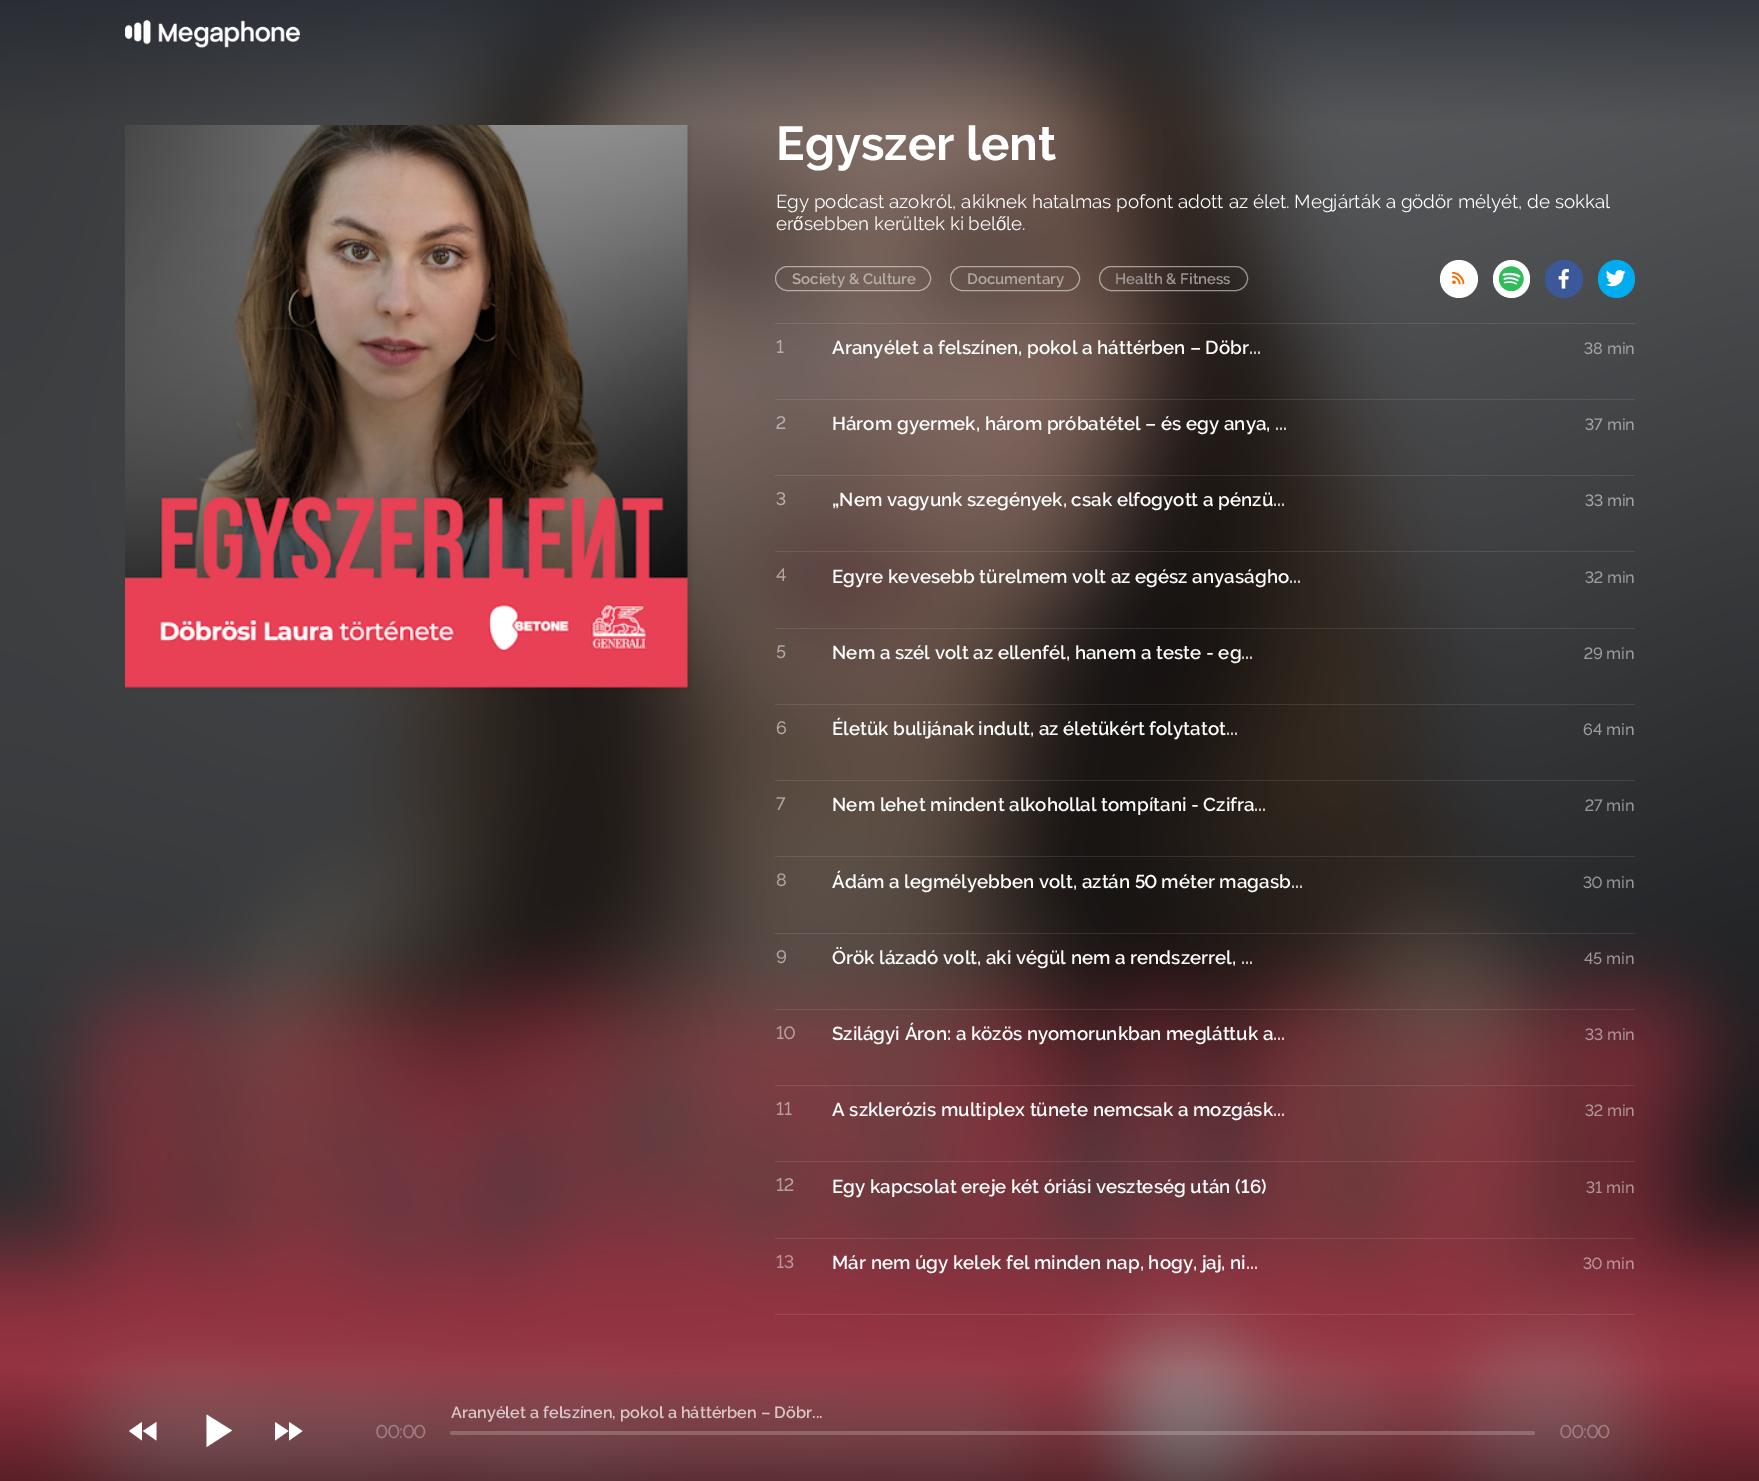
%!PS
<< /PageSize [1759 1481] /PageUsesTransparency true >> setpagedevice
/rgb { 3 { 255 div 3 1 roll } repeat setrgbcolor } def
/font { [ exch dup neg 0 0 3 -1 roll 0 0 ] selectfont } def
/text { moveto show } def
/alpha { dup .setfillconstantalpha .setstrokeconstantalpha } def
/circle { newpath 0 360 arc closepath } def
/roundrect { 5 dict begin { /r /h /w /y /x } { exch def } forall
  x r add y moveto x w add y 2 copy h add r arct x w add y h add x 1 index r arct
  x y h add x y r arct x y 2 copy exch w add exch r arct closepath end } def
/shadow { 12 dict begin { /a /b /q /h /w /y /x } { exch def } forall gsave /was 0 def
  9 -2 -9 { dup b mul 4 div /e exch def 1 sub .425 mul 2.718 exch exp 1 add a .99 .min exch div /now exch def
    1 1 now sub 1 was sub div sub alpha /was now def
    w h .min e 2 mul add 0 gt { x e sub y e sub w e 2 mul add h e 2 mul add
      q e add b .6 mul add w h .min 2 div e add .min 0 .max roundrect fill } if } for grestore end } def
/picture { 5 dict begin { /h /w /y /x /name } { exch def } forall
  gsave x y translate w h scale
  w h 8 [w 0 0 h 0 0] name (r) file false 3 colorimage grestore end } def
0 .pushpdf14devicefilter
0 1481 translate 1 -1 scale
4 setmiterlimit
255 255 255 rgb
0 0 1759 1481 rectfill
(img_01.rgb) 0 0 1759 1481 picture
(img_02.rgb) 125 20 175 28 picture
gsave
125 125 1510 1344 rectclip
0 0 0 rgb
123 123 567 567 0 3 0.1 shadow
grestore
(img_03.rgb) 125 125 563 563 picture
0.5 alpha
775.5 266.5 155 24 12 roundrect stroke
950.5 266.5 129 24 12 roundrect stroke
1099.5 266.5 148 24 12 roundrect stroke
1 alpha
1459 279 19 circle fill
(img_04.rgb) 1452 271 13 14 picture
1493 260 37 38 18.5 roundrect fill
(img_05.rgb) 1499 266 25 25 picture
59 89 152 rgb
1564 279 19 circle fill
(img_06.rgb) 1558 269 11 20 picture
0 172 237 rgb
1598 260 37 38 18.5 roundrect fill
(img_07.rgb) 1606 270 20 17 picture
0.1 alpha
255 255 255 rgb
775 323 860 1 rectfill
775 399 860 1 rectfill
775 475 860 1 rectfill
775 551 860 1 rectfill
775 628 860 1 rectfill
775 704 860 1 rectfill
775 780 860 1 rectfill
775 856 860 1 rectfill
775 933 860 1 rectfill
775 1009 860 1 rectfill
775 1085 860 1 rectfill
775 1161 860 1 rectfill
775 1238 860 1 rectfill
775 1314 860 1 rectfill
1 alpha
143 1431 moveto 13.5 -9 rlineto 0 18.5 rlineto closepath 142 1440.5 moveto -13 -9.5 rlineto 13 -9 rlineto closepath fill
206.5 1414.5 moveto 25.5 16 rlineto -25.5 16.5 rlineto closepath fill
289 1422 moveto 13.5 9 rlineto -13.5 9.5 rlineto closepath 275 1440.5 moveto 0 -18.5 rlineto 13.5 9 rlineto closepath fill
0.2 alpha
450 1431 1085 4 2 roundrect fill
/Raleway-Bold 47.5 font
1 alpha
(Egyszer lent) 776 160 text
/Raleway-Regular 18.75 font
(Egy podcast azokról, akiknek hatalmas pofont adott az élet. Megjárták a gödör mélyét, de sokkal) 776 208 text
(er) 776 230 text
/LiberationSans-Regular 18.75 font
(ő) 793 230 text
/Raleway-Regular 18.75 font
(sebben kerültek ki bel) 804 230 text
/LiberationSans-Regular 18.75 font
(ő) 996 230 text
/Raleway-Regular 18.75 font
(le.) 1006 230 text
/Raleway-SemiBold 15 font
183 174 171 rgb
(Society & Culture) 792 284 text
177 168 164 rgb
(Documentary) 967 284 text
157 150 148 rgb
(Health & Fitness) 1115 284 text
/Raleway-Medium 18 font
183 174 171 rgb
(1) 776 353 text
/Raleway-SemiBold 18.75 font
255 255 255 rgb
(Aranyélet a felszínen, pokol a háttérben – Döbr...) 832 354 text
/Raleway-Medium 16.25 font
163 163 165 rgb
(38 min) 1584 354 text
/Raleway-Medium 18 font
183 174 171 rgb
(2) 776 429 text
/Raleway-SemiBold 18.75 font
255 255 255 rgb
(Három gyermek, három próbatétel – és egy anya, ...) 832 430 text
/Raleway-Medium 16.25 font
163 163 165 rgb
(37 min) 1585 430 text
/Raleway-Medium 18 font
183 174 171 rgb
(3) 776 505 text
/Raleway-SemiBold 18.75 font
255 255 255 rgb
(„Nem vagyunk szegények, csak elfogyott a pénzü...) 832 506 text
/Raleway-Medium 16.25 font
163 163 165 rgb
(33 min) 1585 506 text
/Raleway-Medium 18 font
177 168 164 rgb
(4) 776 581 text
/Raleway-SemiBold 18.75 font
255 255 255 rgb
(Egyre kevesebb türelmem volt az egész anyaságho...) 832 583 text
/Raleway-Medium 16.25 font
156 157 158 rgb
(32 min) 1585 583 text
/Raleway-Medium 18 font
177 168 164 rgb
(5) 776 658 text
/Raleway-SemiBold 18.75 font
255 255 255 rgb
(Nem a szél volt az ellenfél, hanem a teste - eg...) 832 659 text
/Raleway-Medium 16.25 font
156 157 158 rgb
(29 min) 1584 659 text
/Raleway-Medium 18 font
177 168 164 rgb
(6) 776 734 text
/Raleway-SemiBold 18.75 font
255 255 255 rgb
(Életük bulijának indult, az életükért folytatot...) 832 735 text
/Raleway-Medium 16.25 font
156 157 158 rgb
(64 min) 1583 735 text
/Raleway-Medium 18 font
171 164 159 rgb
(7) 776 810 text
/Raleway-SemiBold 18.75 font
255 255 255 rgb
(Nem lehet mindent alkohollal tompítani - Czifra...) 832 811 text
/Raleway-Medium 16.25 font
150 151 152 rgb
(27 min) 1585 811 text
/Raleway-Medium 18 font
171 164 159 rgb
(8) 776 886 text
/Raleway-SemiBold 18.75 font
255 255 255 rgb
(Ádám a legmélyebben volt, aztán 50 méter magasb...) 832 888 text
/Raleway-Medium 16.25 font
150 151 152 rgb
(30 min) 1583 888 text
/Raleway-Medium 18 font
177 168 164 rgb
(9) 776 963 text
/Raleway-SemiBold 18.75 font
255 255 255 rgb
(Örök lázadó volt, aki végül nem a rendszerrel, ...) 832 964 text
/Raleway-Medium 16.25 font
157 150 148 rgb
(45 min) 1584 964 text
/Raleway-Medium 18 font
184 160 161 rgb
(10) 776 1039 text
/Raleway-SemiBold 18.75 font
255 255 255 rgb
(Szilágyi Áron: a közös nyomorunkban megláttuk a...) 832 1040 text
/Raleway-Medium 16.25 font
177 149 153 rgb
(33 min) 1585 1040 text
/Raleway-Medium 18 font
184 160 161 rgb
(11) 776 1115 text
/Raleway-SemiBold 18.75 font
255 255 255 rgb
(A szklerózis multiplex tünete nemcsak a mozgásk...) 832 1116 text
/Raleway-Medium 16.25 font
177 149 153 rgb
(32 min) 1585 1116 text
/Raleway-Medium 18 font
184 160 161 rgb
(12) 776 1191 text
/Raleway-SemiBold 18.75 font
255 255 255 rgb
(Egy kapcsolat ereje két óriási veszteség után \(16\)) 832 1193 text
/Raleway-Medium 16.25 font
177 149 153 rgb
(31 min) 1586 1193 text
/Raleway-Medium 18 font
188 150 156 rgb
(13) 776 1268 text
/Raleway-SemiBold 18.75 font
255 255 255 rgb
(Már nem úgy kelek fel minden nap, hogy, jaj, ni...) 832 1269 text
/Raleway-Medium 16.25 font
188 150 156 rgb
(30 min) 1583 1269 text
/Raleway-Medium 18.75 font
159 126 130 rgb
(00:00) 376 1438 text
/Raleway-SemiBold 16.25 font
217 198 201 rgb
(Aranyélet a felszínen, pokol a háttérben – Döbr...) 451 1418 text
/Raleway-Medium 18.75 font
159 126 130 rgb
(00:00) 1560 1438 text
.poppdf14devicefilter showpage
